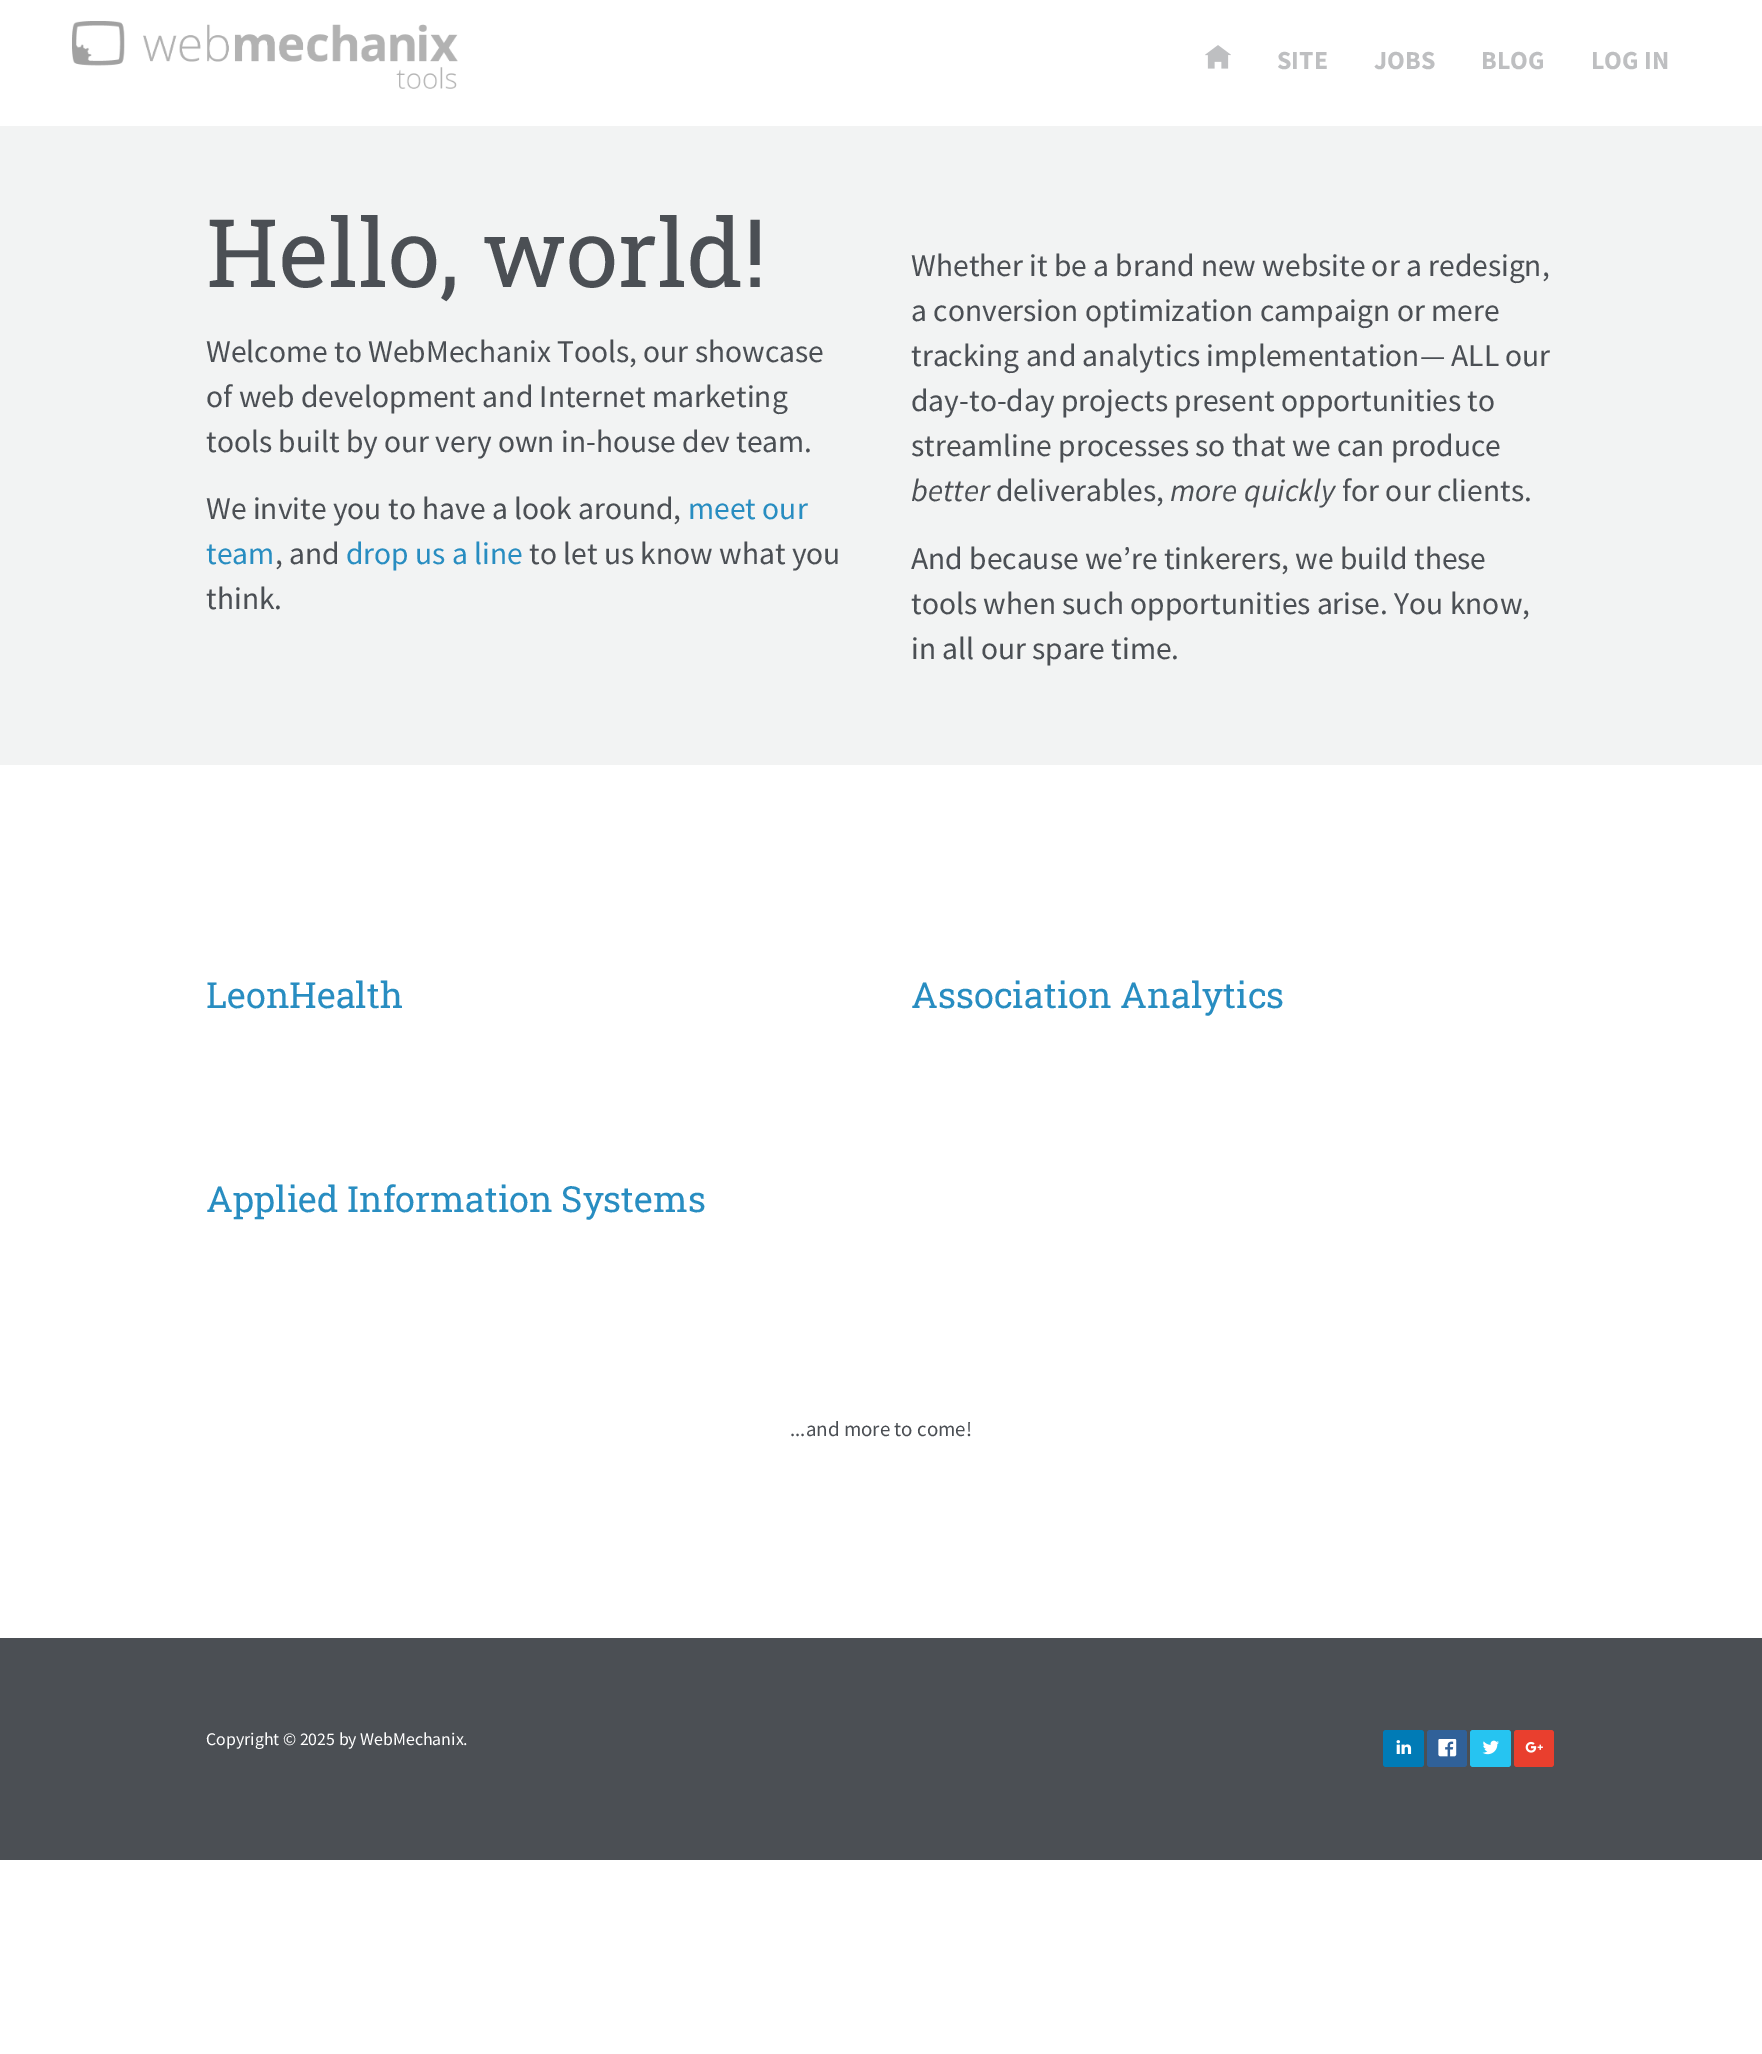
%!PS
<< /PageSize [1762 2054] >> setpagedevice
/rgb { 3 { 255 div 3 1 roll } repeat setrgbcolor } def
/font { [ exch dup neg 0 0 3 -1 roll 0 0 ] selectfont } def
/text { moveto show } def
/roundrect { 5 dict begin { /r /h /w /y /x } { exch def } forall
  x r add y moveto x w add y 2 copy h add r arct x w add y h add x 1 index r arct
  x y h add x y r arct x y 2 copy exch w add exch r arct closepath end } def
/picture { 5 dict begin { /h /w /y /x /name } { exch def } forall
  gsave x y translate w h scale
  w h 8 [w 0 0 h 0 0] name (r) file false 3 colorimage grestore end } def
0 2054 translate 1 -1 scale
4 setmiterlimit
255 255 255 rgb
0 0 1762 2054 rectfill
(img_01.rgb) 72 21 386 68 picture
(img_02.rgb) 1205 45 26 24 picture
242 243 243 rgb
0 126 1762 639 rectfill
75 79 84 rgb
0 1638 1762 222 rectfill
0 123 182 rgb
1383 1730 41 37 3 roundrect fill
(img_03.rgb) 1396 1740 16 14 picture
48 97 153 rgb
1427 1730 40 37 3 roundrect fill
(img_04.rgb) 1438 1739 19 18 picture
38 196 241 rgb
1470 1730 41 37 3 roundrect fill
(img_05.rgb) 1482 1740 17 15 picture
233 63 46 rgb
1514 1730 40 37 3 roundrect fill
(img_06.rgb) 1525 1741 18 12 picture
/SourceSansPro-Bold 26 font
190 191 193 rgb
(SITE) 1277 69 text
(JOBS) 1374 69 text
(BLOG) 1481 69 text
(LOG IN) 1591 69 text
/RobotoSlab-Regular 94.5 font
75 79 84 rgb
(Hello, world!) 206 287 text
/SourceSansPro-Regular 31.5 font
(Welcome to WebMechanix Tools, our showcase) 206 362 text
(of web development and Internet marketing) 206 407 text
(tools built by our very own in-house dev team.) 206 452 text
(We invite you to have a look around,) 206 519 text
40 141 193 rgb
(meet our) 688 519 text
(team) 206 564 text
75 79 84 rgb
(, and) 275 564 text
40 141 193 rgb
(drop us a line) 346 564 text
75 79 84 rgb
(to let us know what you) 529 564 text
(think.) 206 609 text
(Whether it be a brand new website or a redesign,) 911 276 text
(a conversion optimization campaign or mere) 911 321 text
(tracking and analytics implementation— ALL our) 911 366 text
(day-to-day projects present opportunities to) 911 411 text
(streamline processes so that we can produce) 911 456 text
/SourceSansPro-Italic 31.5 font
(better) 911 501 text
/SourceSansPro-Regular 31.5 font
(deliverables,) 996 501 text
/SourceSansPro-Italic 31.5 font
(more quickly) 1170 501 text
/SourceSansPro-Regular 31.5 font
(for our clients.) 1342 501 text
(And because we’re tinkerers, we build these) 911 569 text
(tools when such opportunities arise. You know,) 911 614 text
(in all our spare time.) 911 659 text
/RobotoSlab-Regular 36 font
40 141 193 rgb
(LeonHealth) 206 1008 text
(Association Analytics) 911 1008 text
(Applied Information Systems) 206 1212 text
/SourceSansPro-Regular 21 font
75 79 84 rgb
(...and more to come!) 790 1436 text
/SourceSansPro-Regular 17.8 font
255 255 255 rgb
(Copyright © 2025 by WebMechanix.) 206 1745 text
showpage
